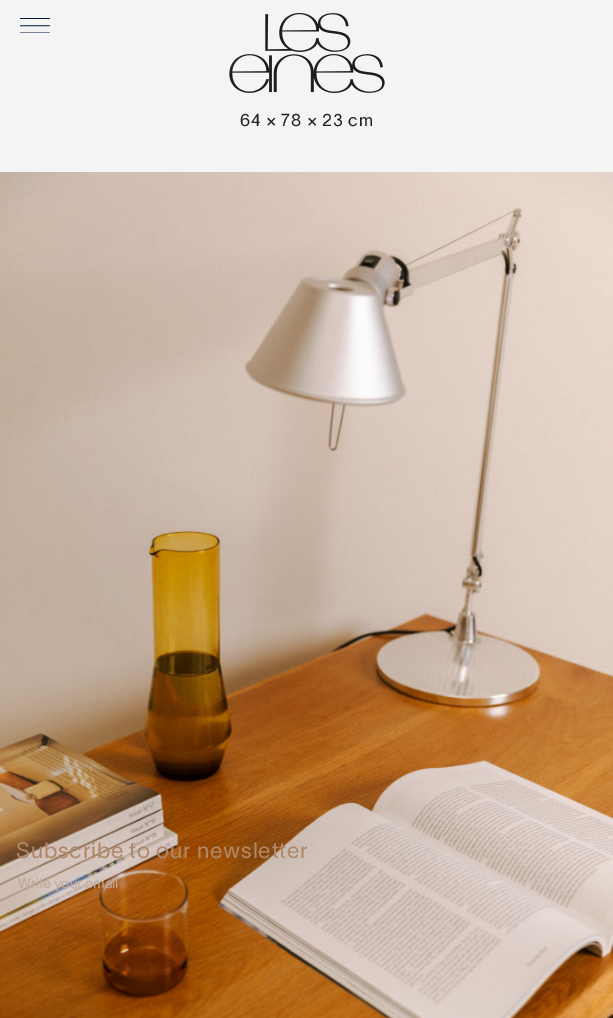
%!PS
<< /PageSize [613 1018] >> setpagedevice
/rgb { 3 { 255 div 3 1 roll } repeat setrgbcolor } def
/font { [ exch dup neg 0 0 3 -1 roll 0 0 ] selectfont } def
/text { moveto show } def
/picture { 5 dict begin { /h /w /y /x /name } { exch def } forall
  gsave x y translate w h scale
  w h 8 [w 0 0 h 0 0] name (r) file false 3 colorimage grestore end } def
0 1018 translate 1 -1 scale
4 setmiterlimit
244 244 244 rgb
0 0 613 1018 rectfill
(img_01.rgb) 20 18 30 15 picture
(img_02.rgb) 229 13 156 80 picture
(img_03.rgb) 0 172 613 846 picture
/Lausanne-Regular 17 font
34 34 34 rgb
240 126 moveto 0.85 0 (64 × 78 × 23 cm) ashow
/Lausanne-Regular 22 font
176 136 104 rgb
16 858 moveto 0.85 0 (Subscribe to our newsletter) ashow
/Lausanne-Regular 14 font
192 169 154 rgb
(Write your email) 18 888 text
showpage
